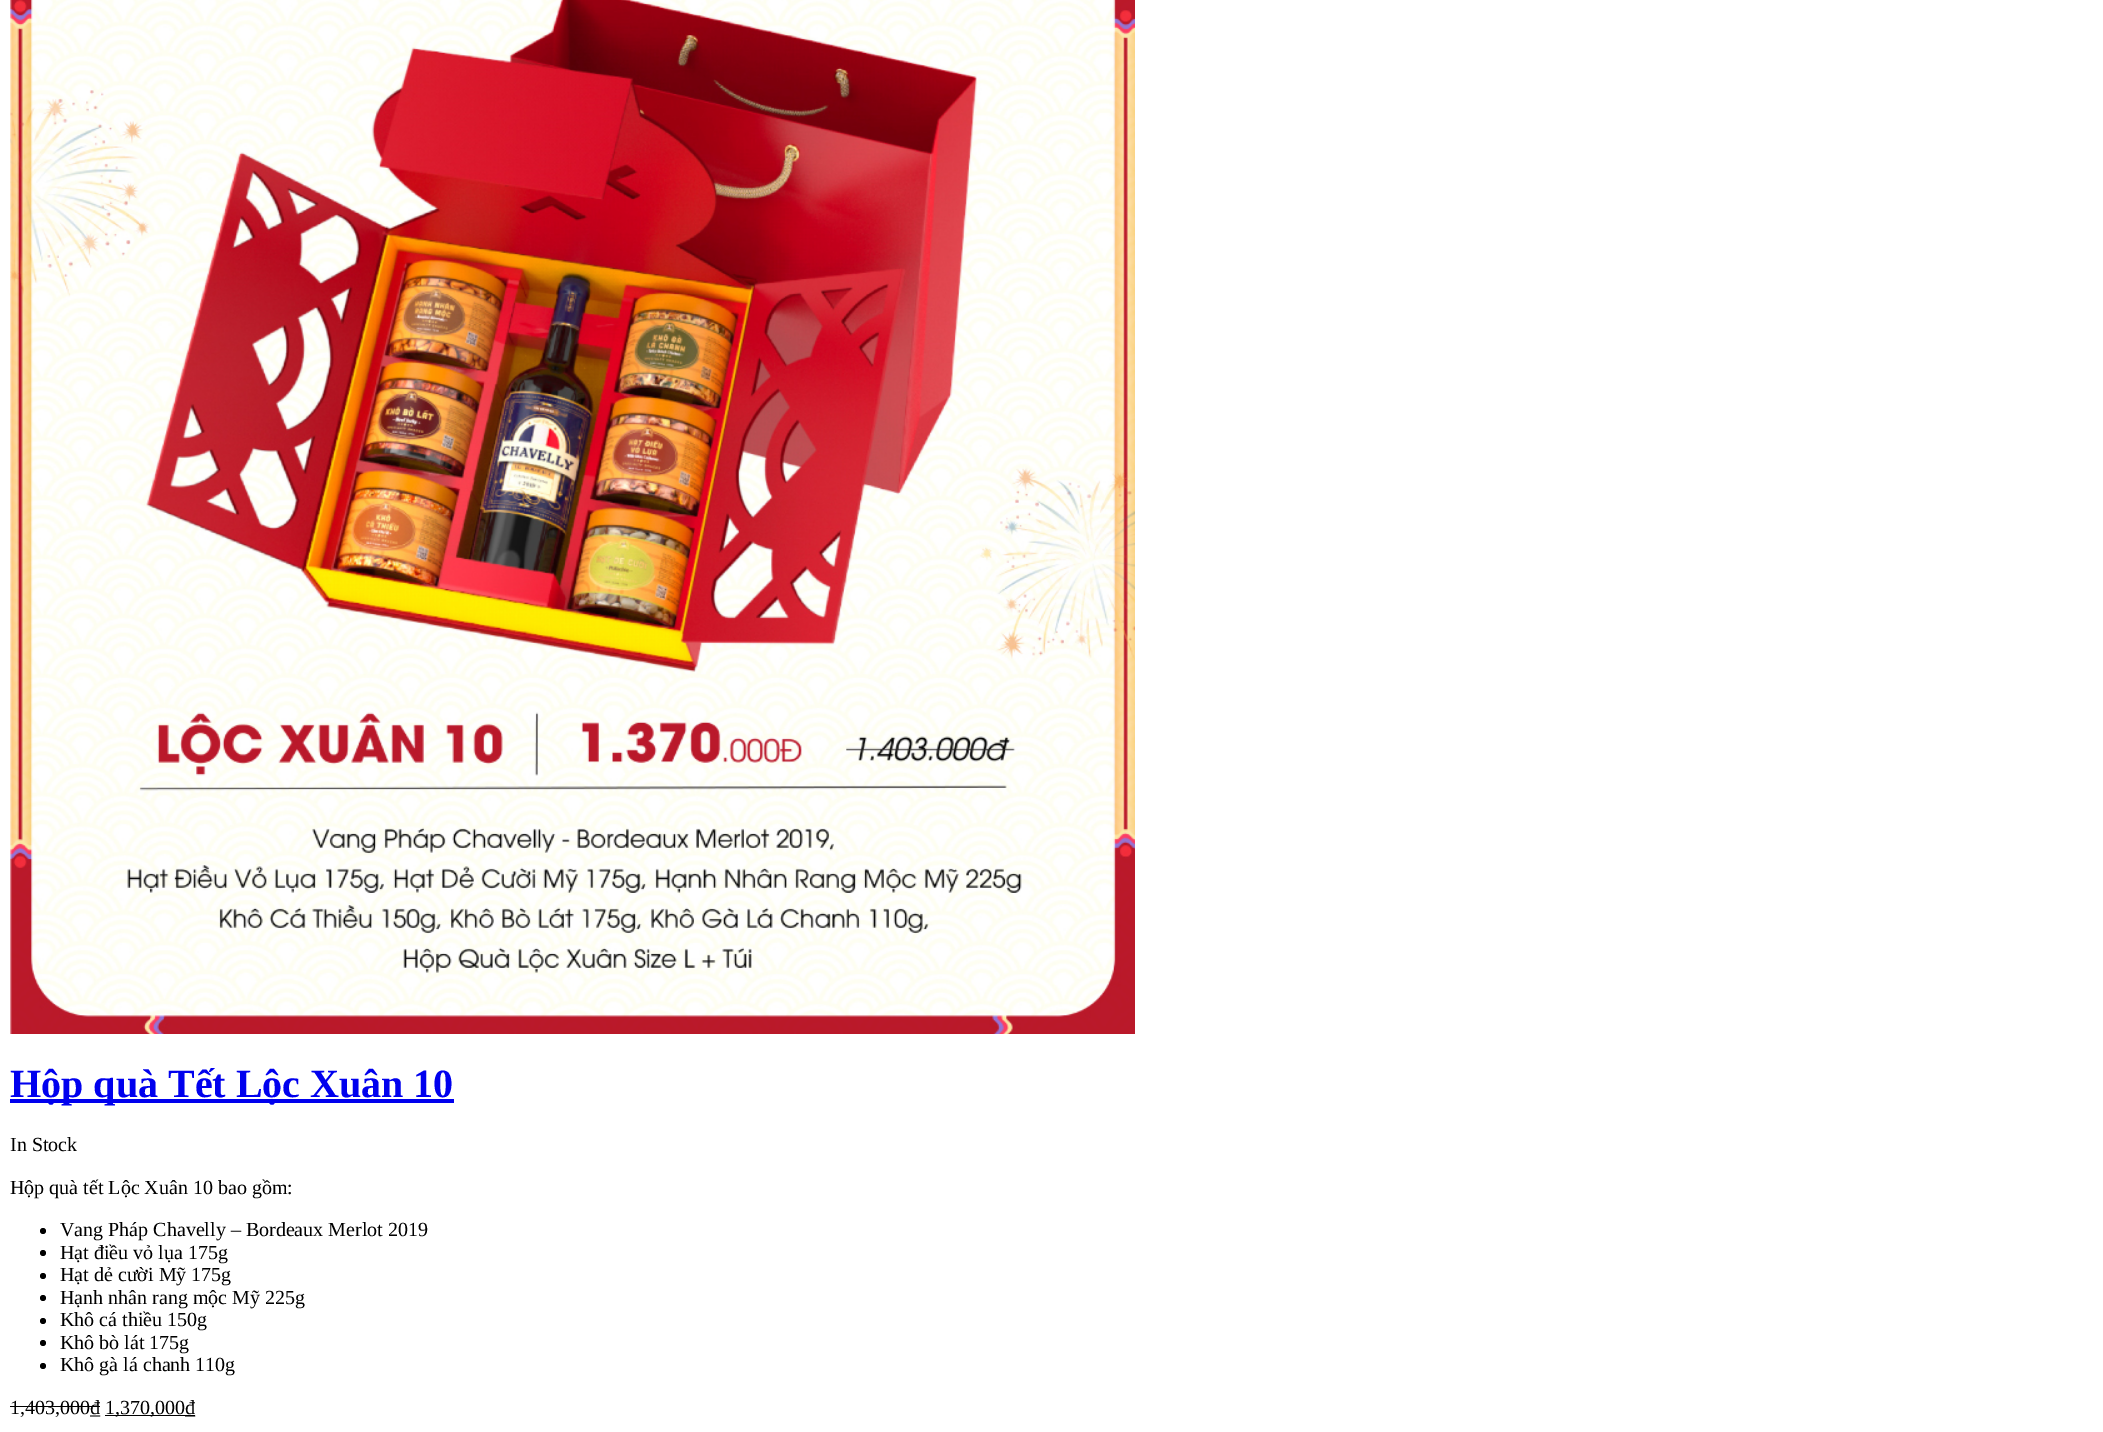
%!PS
<< /PageSize [2103 1432] >> setpagedevice
/rgb { 3 { 255 div 3 1 roll } repeat setrgbcolor } def
/font { [ exch dup neg 0 0 3 -1 roll 0 0 ] selectfont } def
/text { moveto show } def
/circle { newpath 0 360 arc closepath } def
/picture { 5 dict begin { /h /w /y /x /name } { exch def } forall
  gsave x y translate w h scale
  w h 8 [w 0 0 h 0 0] name (r) file false 3 colorimage grestore end } def
0 1432 translate 1 -1 scale
4 setmiterlimit
255 255 255 rgb
0 0 2103 1432 rectfill
(img_01.rgb) 10 0 1125 1034 picture
0 0 238 rgb
10 1099 444 4 rectfill
0 0 0 rgb
43 1231 3 circle fill
43 1253 3 circle fill
43 1276 3 circle fill
43 1298 3 circle fill
43 1321 3 circle fill
43 1343 3 circle fill
43 1366 3 circle fill
10 1406 80 1 rectfill
90 1406 10 1 rectfill
105 1415 90 1 rectfill
/LiberationSerif-Bold 40 font
0 0 238 rgb
(Hộp quà Tết Lộc Xuân 10) 10 1097 text
/LiberationSerif-Regular 20 font
0 0 0 rgb
(In Stock) 10 1151 text
(Hộp quà tết Lộc Xuân 10 bao gồm:) 10 1194 text
(Vang Pháp Chavelly – Bordeaux Merlot 2019) 60 1236 text
(Hạt điều vỏ lụa 175g) 60 1259 text
(Hạt dẻ cười Mỹ 175g) 60 1281 text
(Hạnh nhân rang mộc Mỹ 225g) 60 1304 text
(Khô cá thiều 150g) 60 1326 text
(Khô bò lát 175g) 60 1349 text
(Khô gà lá chanh 110g) 60 1371 text
(1,403,000) 10 1414 text
(₫) 90 1414 text
(1,370,000₫) 105 1414 text
showpage
